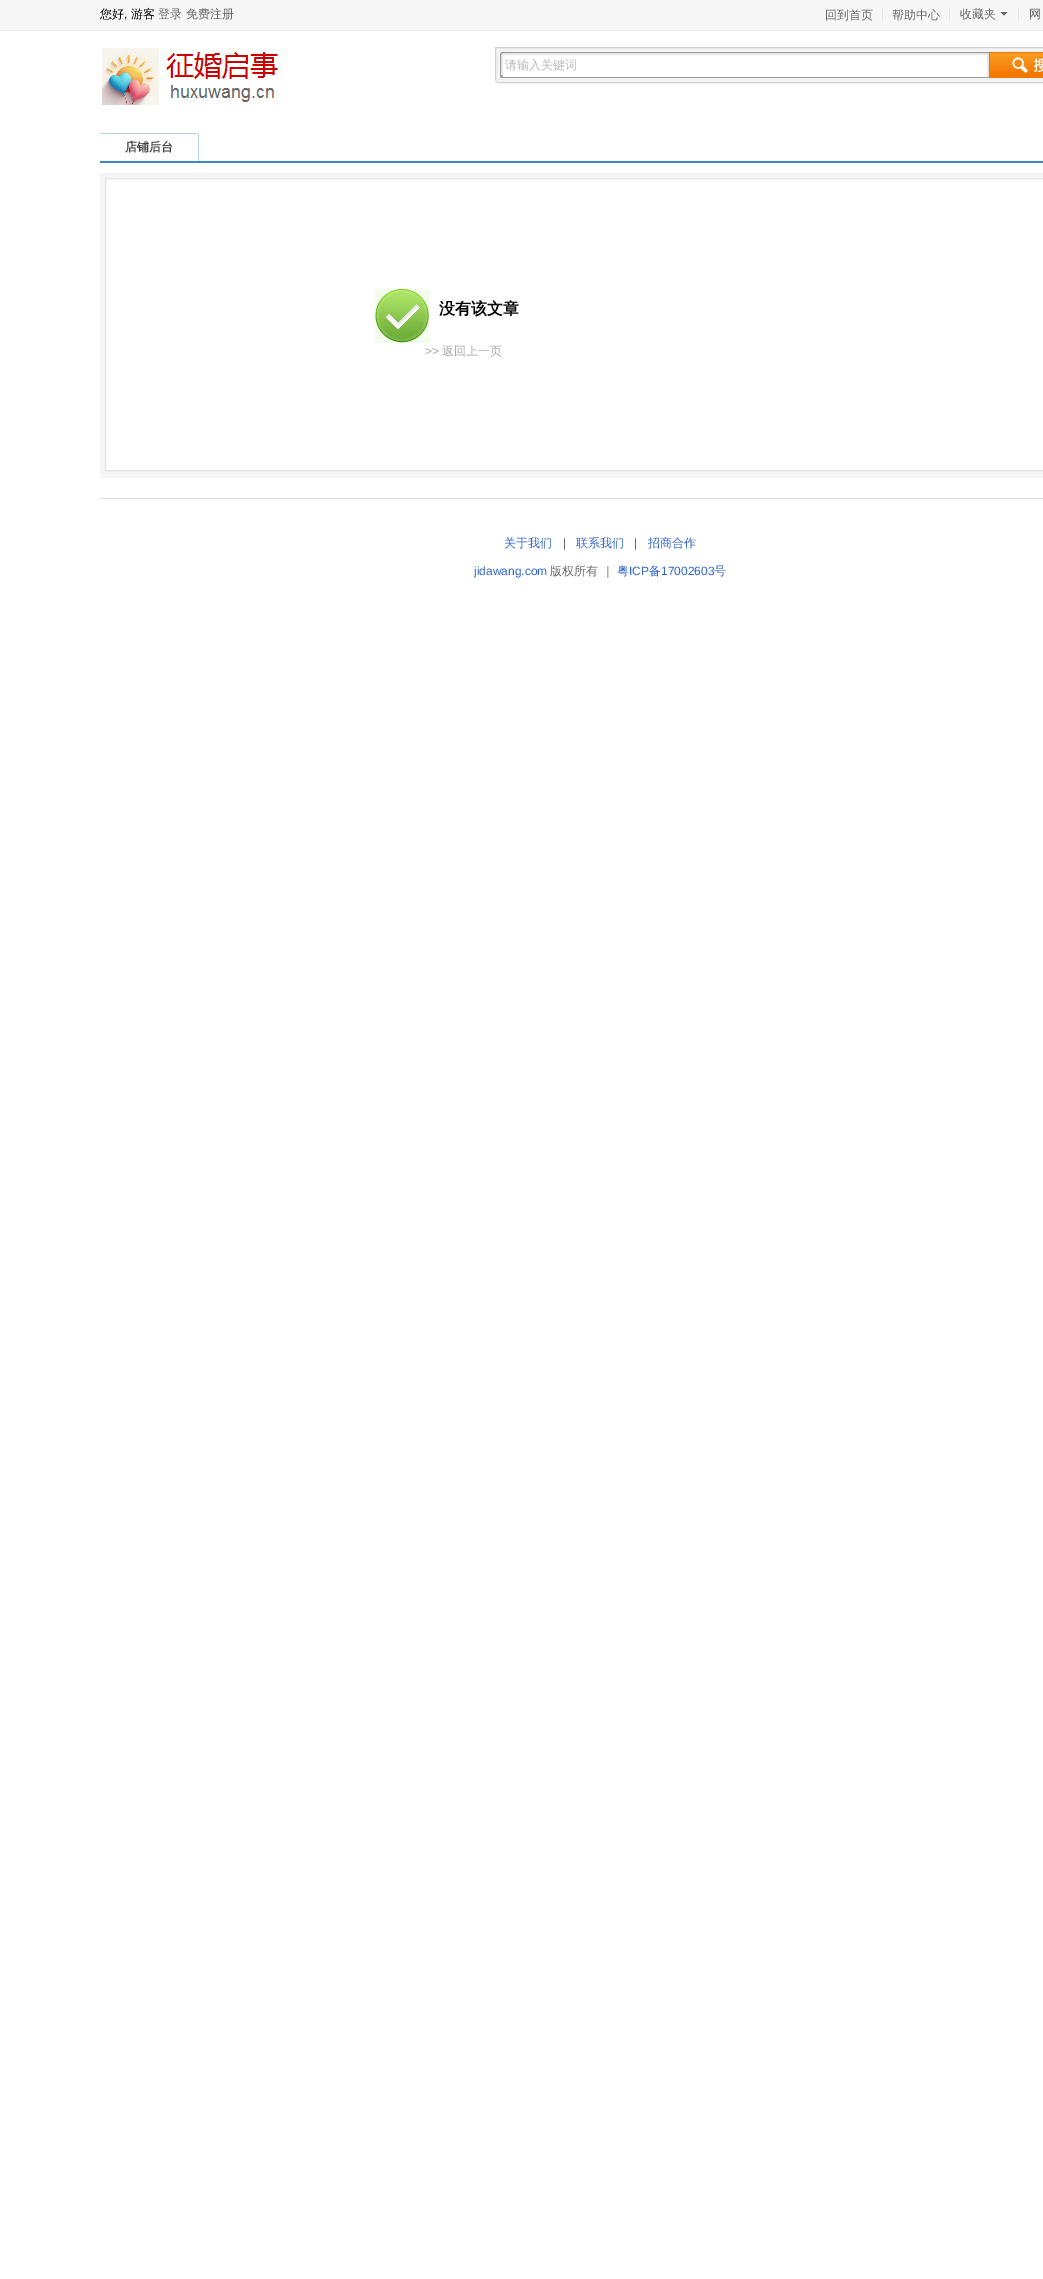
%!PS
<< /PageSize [1043 2279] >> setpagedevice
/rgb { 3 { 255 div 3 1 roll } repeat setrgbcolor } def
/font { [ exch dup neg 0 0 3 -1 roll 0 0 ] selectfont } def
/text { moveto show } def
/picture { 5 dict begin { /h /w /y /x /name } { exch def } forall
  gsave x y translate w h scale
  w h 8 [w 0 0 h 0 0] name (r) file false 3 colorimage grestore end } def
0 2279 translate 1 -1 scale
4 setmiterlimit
255 255 255 rgb
0 0 1043 2279 rectfill
247 247 247 rgb
0 0 1043 30 rectfill
238 238 238 rgb
0 30 1043 1 rectfill
222 228 231 rgb
882 8 1 12 rectfill
949 8 1 12 rectfill
1018 8 1 12 rectfill
102 102 102 rgb
1000 12 moveto 8 0 rlineto -4 4 rlineto closepath fill
247 247 247 rgb
1008 12 moveto 0 8 rlineto -4 -4 rlineto closepath 1000 20 moveto 0 -8 rlineto 4 4 rlineto closepath fill
(img_01.rgb) 102 48 176 57 picture
243 243 243 rgb
495.5 47.5 moveto 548 0 rlineto 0 35 rlineto -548 0 rlineto closepath gsave fill grestore
208 208 208 rgb
stroke
(img_02.rgb) 501 53 488 24 picture
155 159 159 rgb
500 52 489 1 rectfill
500 77 489 1 rectfill
500 52 1 26 rectfill
(img_03.rgb) 500 52 2 2 picture
(img_04.rgb) 987 54 2 23 picture
167 170 170 rgb
500 75 3 3 rectfill
(img_05.rgb) 989 52 54 26 picture
(img_06.rgb) 495 79 4 4 picture
62 136 205 rgb
100 161 943 2 rectfill
182 207 234 rgb
100 133 98 1 rectfill
198 134 1 27 rectfill
245 245 245 rgb
100 173 943 305 rectfill
255 255 255 rgb
105.5 178.5 moveto 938 0 rlineto 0 292 rlineto -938 0 rlineto closepath gsave fill grestore
226 226 226 rgb
stroke
(img_07.rgb) 375 289 54 54 picture
221 221 221 rgb
100 498 943 1 rectfill
/WenQuanYiZenHei-Medium 12 font
0 0 0 rgb
(您好) 100 18 text
/LiberationSans-Regular 12 font
(,) 124 18 text
/WenQuanYiZenHei-Medium 12 font
(游客) 131 18 text
102 102 102 rgb
(登录 免费注册) 158 18 text
(回到首页) 825 19 text
(帮助中心) 892 19 text
(收藏夹) 960 18 text
(网) 1029 18 text
186 186 186 rgb
(请输入关键词) 505 69 text
/WenQuanYiZenHei-Bold 12 font
64 64 64 rgb
(店铺后台) 125 151 text
/WenQuanYiZenHei-Bold 16 font
0 0 0 rgb
(没有该文章) 439 314 text
/LiberationSans-Regular 12 font
170 170 170 rgb
(>>) 425 355 text
/WenQuanYiZenHei-Medium 12 font
(返回上一页) 442 355 text
51 102 204 rgb
(关于我们) 504 547 text
/LiberationSans-Regular 12 font
102 102 102 rgb
(|) 563 547 text
/WenQuanYiZenHei-Medium 12 font
51 102 204 rgb
(联系我们) 576 547 text
/LiberationSans-Regular 12 font
102 102 102 rgb
(|) 634 547 text
/WenQuanYiZenHei-Medium 12 font
51 102 204 rgb
(招商合作) 648 547 text
/LiberationSans-Regular 12 font
(jidawang.com) 474 575 text
/WenQuanYiZenHei-Medium 12 font
102 102 102 rgb
(版权所有 ｜) 550 575 text
51 102 204 rgb
(粤) 617 575 text
/LiberationSans-Regular 12 font
(ICP) 629 575 text
/WenQuanYiZenHei-Medium 12 font
(备) 649 575 text
/LiberationSans-Regular 12 font
(17002603) 661 575 text
/WenQuanYiZenHei-Medium 12 font
(号) 714 575 text
showpage
